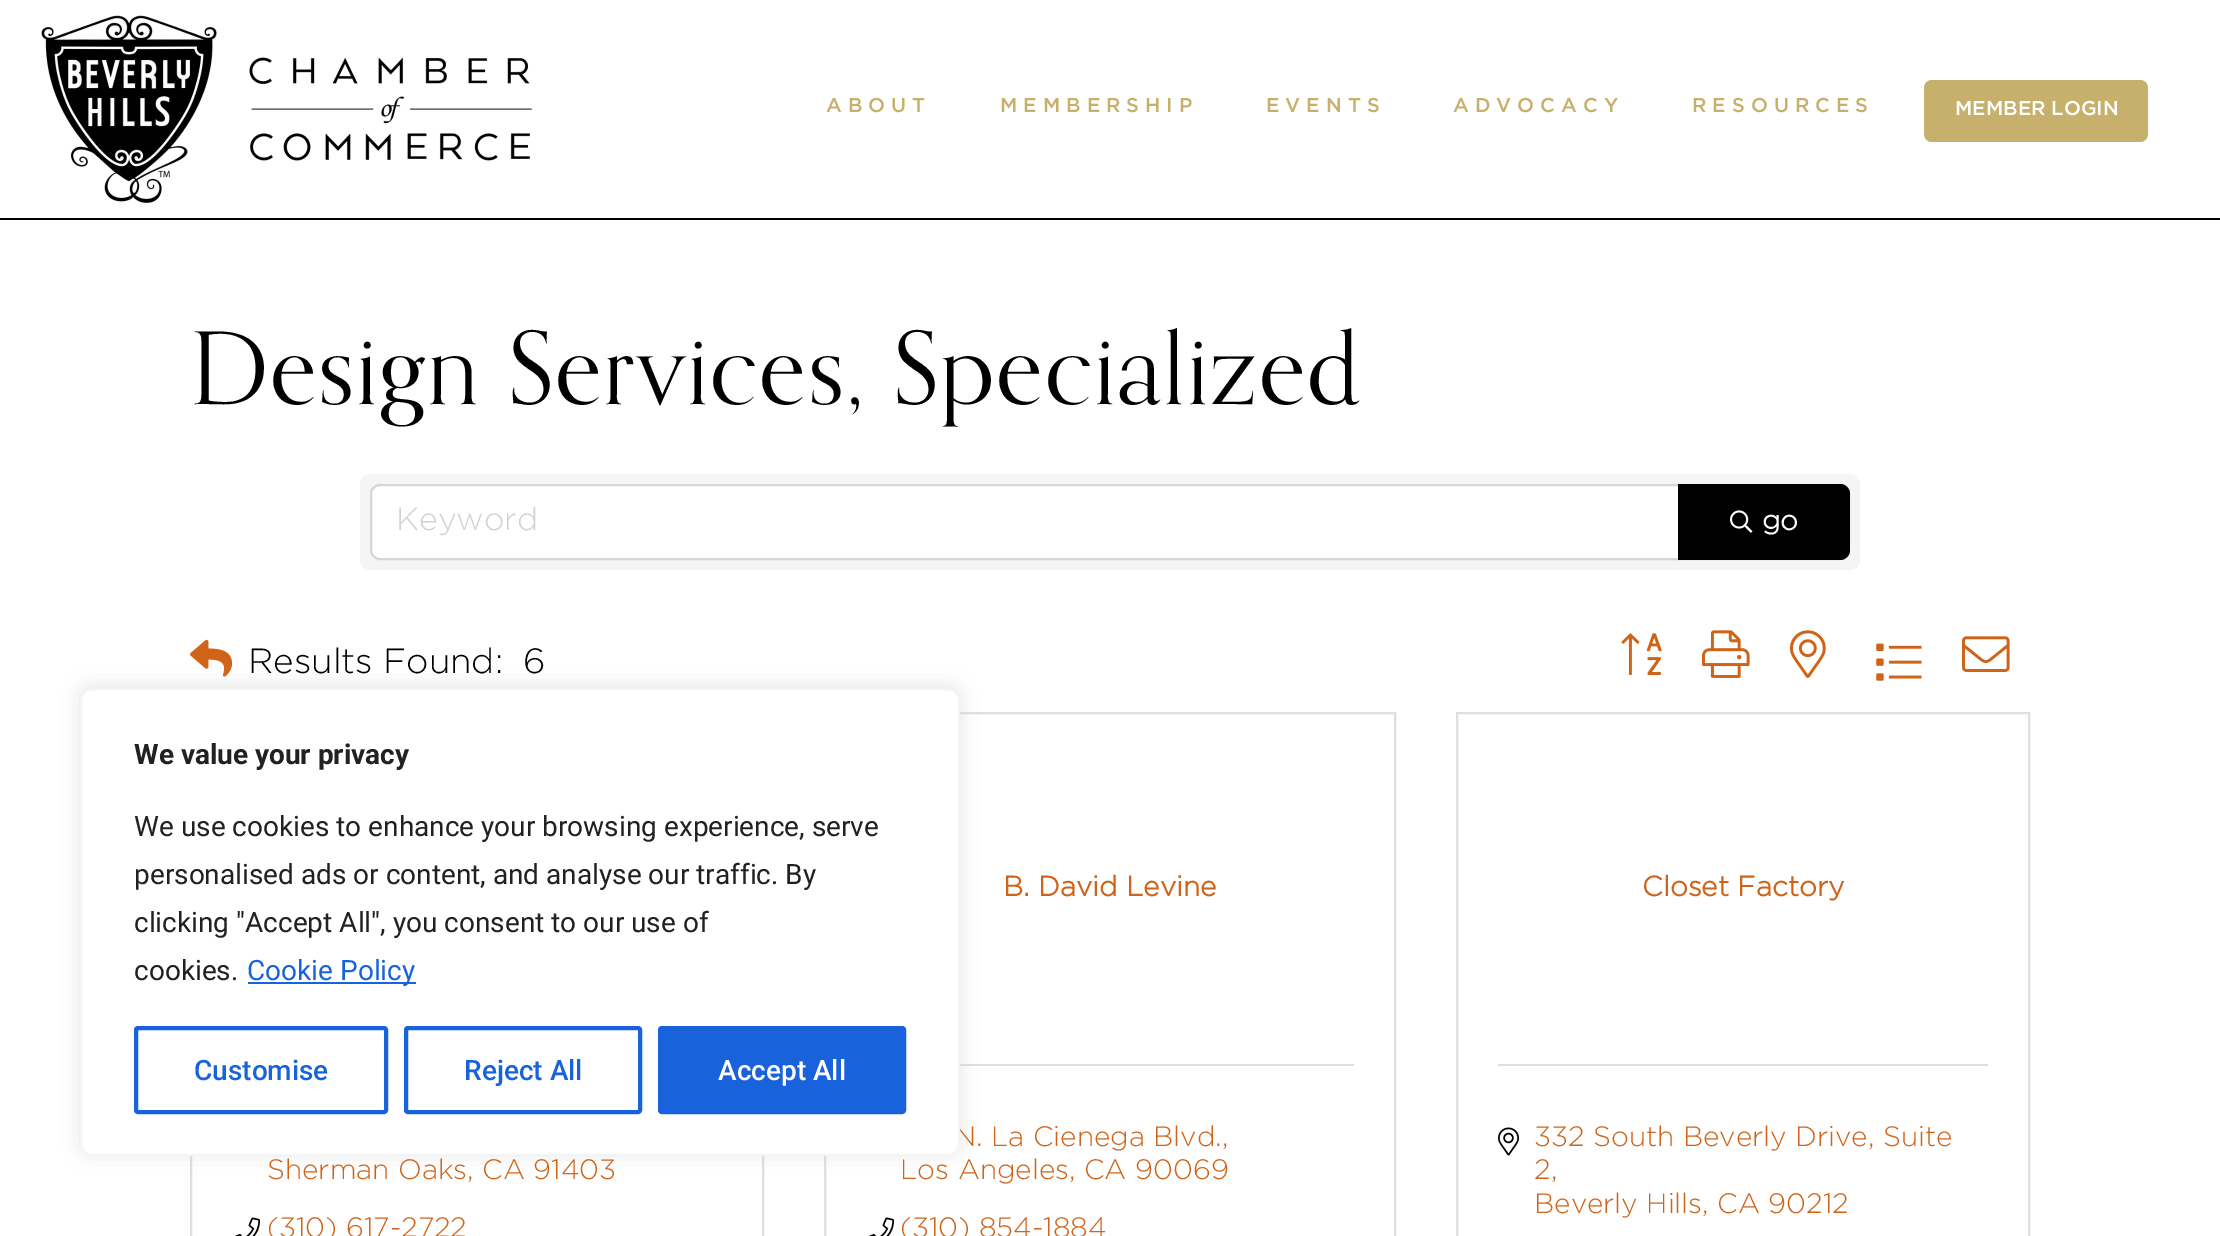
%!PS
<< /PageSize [2220 1236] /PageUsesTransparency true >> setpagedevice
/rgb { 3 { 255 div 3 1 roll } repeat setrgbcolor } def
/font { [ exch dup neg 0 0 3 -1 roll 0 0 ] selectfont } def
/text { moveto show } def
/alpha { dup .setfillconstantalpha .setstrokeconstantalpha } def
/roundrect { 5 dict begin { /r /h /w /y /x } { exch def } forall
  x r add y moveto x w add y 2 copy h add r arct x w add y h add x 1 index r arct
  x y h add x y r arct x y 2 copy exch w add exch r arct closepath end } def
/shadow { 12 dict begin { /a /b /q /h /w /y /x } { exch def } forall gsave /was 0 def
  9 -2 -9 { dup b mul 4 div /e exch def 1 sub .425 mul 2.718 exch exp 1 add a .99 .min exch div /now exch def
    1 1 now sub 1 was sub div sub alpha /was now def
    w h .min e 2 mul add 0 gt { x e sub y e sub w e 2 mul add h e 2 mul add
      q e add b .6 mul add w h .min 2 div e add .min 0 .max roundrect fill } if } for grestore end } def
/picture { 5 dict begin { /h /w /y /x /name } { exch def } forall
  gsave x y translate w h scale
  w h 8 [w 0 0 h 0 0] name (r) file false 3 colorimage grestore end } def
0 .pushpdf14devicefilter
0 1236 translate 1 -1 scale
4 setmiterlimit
255 255 255 rgb
0 0 2220 1236 rectfill
0 0 0 rgb
0 218 2220 2 rectfill
(img_01.rgb) 41 15 491 189 picture
199 176 108 rgb
1924 80 224 62 8 roundrect fill
245 245 245 rgb
360 474 1500 96 10 roundrect fill
255 255 255 rgb
380 485 moveto 1299 0 rlineto 0 74 rlineto -1299 0 rlineto -5 0 -9 -4 -9 -9 rcurveto 0 -56 rlineto 0 -5 4 -9 9 -9 rcurveto closepath gsave fill grestore
214 214 214 rgb
2 setlinewidth
stroke
0 0 0 rgb
1678 484 moveto 162 0 rlineto 5.5 0 10 4.5 10 10 rcurveto 0 56 rlineto 0 5.5 -4.5 10 -10 10 rcurveto -162 0 rlineto closepath fill
0.12 alpha
1679 485 moveto 161 0 rlineto 5 0 9 4 9 9 rcurveto 0 56 rlineto 0 5 -4 9 -9 9 rcurveto -161 0 rlineto closepath stroke
1 alpha
(img_02.rgb) 1730 510 23 23 picture
(img_03.rgb) 190 639 43 38 picture
(img_04.rgb) 1621 633 41 42 picture
(img_05.rgb) 1702 630 48 48 picture
(img_06.rgb) 1790 630 36 48 picture
(img_07.rgb) 1876 643 46 38 picture
(img_08.rgb) 1962 636 48 36 picture
223 223 223 rgb
191 713 572 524 rectstroke
(img_09.rgb) 235 1217 26 19 picture
825 713 570 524 rectstroke
960 1064 394 2 rectfill
(img_09.rgb) 869 1217 26 19 picture
1457 713 572 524 rectstroke
1498 1064 490 2 rectfill
(img_10.rgb) 1498 1127 21 29 picture
172 171 171 rgb
80 686 880 468 12 10 0.3 shadow
/Gotham-Medium 20 font
199 176 108 rgb
826 112 moveto 6 0 (ABOUT) ashow
1000 112 moveto 6 0 (MEMBERSHIP) ashow
1266 112 moveto 6 0 (EVENTS) ashow
1453 112 moveto 6 0 (ADVOCACY) ashow
1692 112 moveto 6 0 (RESOURCES) ashow
255 255 255 rgb
(MEMBER LOGIN) 1955 115 text
/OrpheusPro-Regular 100 font
0 0 0 rgb
190 404 moveto 2 0 (Design Services, Specialized) ashow
/Gotham-Light 32 font
210 210 210 rgb
(Keyword) 396 530 text
/Gotham-Bold 28 font
255 255 255 rgb
(go) 1762 530 text
/Gotham-Light 35 font
0 0 0 rgb
(Results Found:) 248 673 text
(6) 523 673 text
/Gotham-Light 28 font
207 99 24 rgb
(Sherman Oaks, CA 91403) 267 1179 text
(\(310\) 617-2722) 267 1237 text
/Gotham-Bold 28 font
(B. David Levine) 1003 896 text
/Gotham-Light 28 font
(N. La Cienega Blvd.,) 954 1146 text
(Los Angeles, CA 90069) 900 1179 text
(\(310\) 854-1884) 900 1237 text
/Gotham-Bold 28 font
(Closet Factory) 1642 896 text
/Gotham-Light 28 font
(332 South Beverly Drive, Suite) 1534 1146 text
(2,) 1534 1179 text
(Beverly Hills, CA 90212) 1534 1213 text
255 255 255 rgb
81 689 878 466 11 roundrect gsave fill grestore
244 244 244 rgb
stroke
/Roboto-Bold 28 font
33 33 33 rgb
(We value your privacy) 134 764 text
/Roboto-Regular 28 font
(We use cookies to enhance your browsing experience, serve) 134 836 text
(personalised ads or content, and analyse our traffic. By) 134 884 text
(clicking "Accept All", you consent to our use of) 134 932 text
(cookies.) 134 980 text
24 99 220 rgb
248 982 168 2 rectfill
(Cookie Policy) 247 980 text
4 setlinewidth
136 1028 250 84 2 roundrect stroke
/Roboto-Medium 28 font
(Customise) 194 1080 text
406 1028 234 84 2 roundrect stroke
(Reject All) 464 1080 text
660 1028 244 84 2 roundrect gsave fill grestore
stroke
255 255 255 rgb
(Accept All) 718 1080 text
.poppdf14devicefilter showpage
